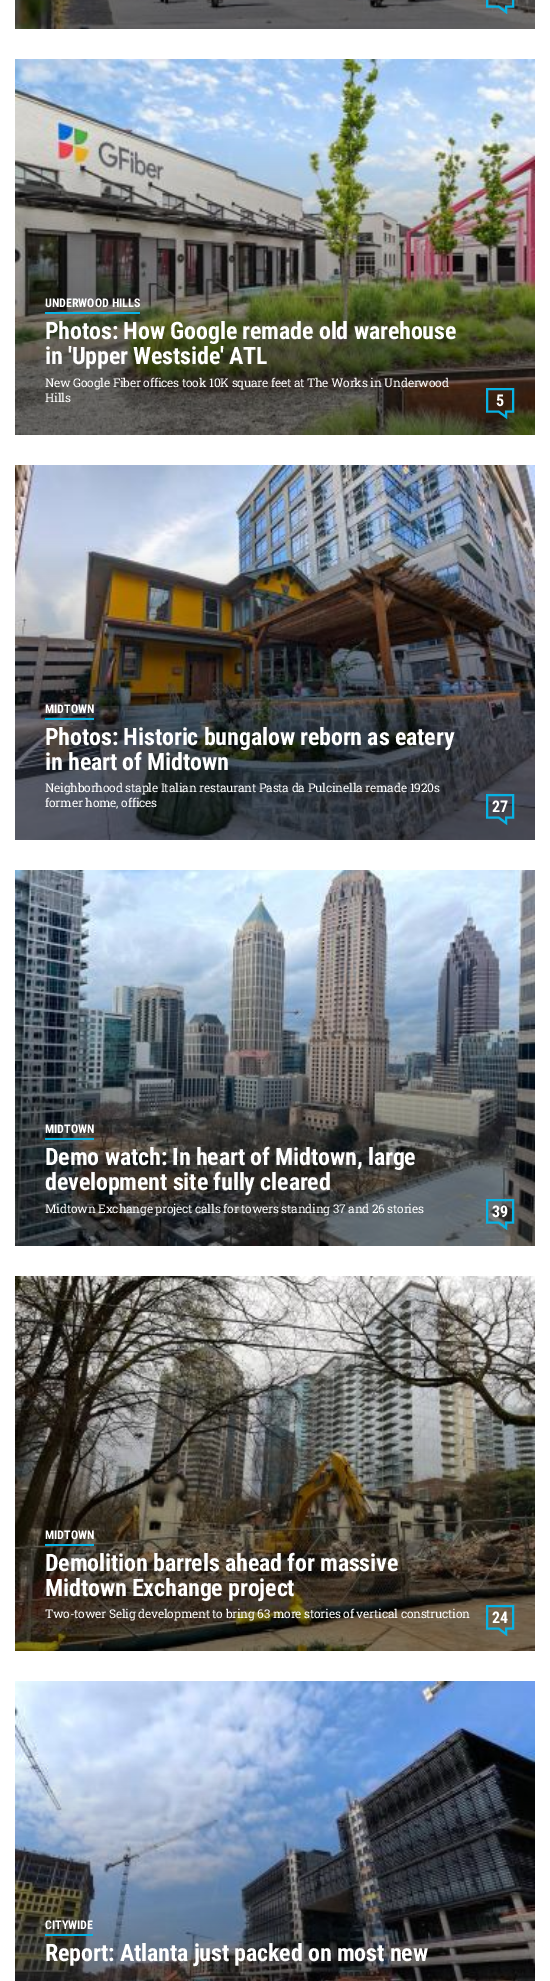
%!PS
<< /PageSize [550 1981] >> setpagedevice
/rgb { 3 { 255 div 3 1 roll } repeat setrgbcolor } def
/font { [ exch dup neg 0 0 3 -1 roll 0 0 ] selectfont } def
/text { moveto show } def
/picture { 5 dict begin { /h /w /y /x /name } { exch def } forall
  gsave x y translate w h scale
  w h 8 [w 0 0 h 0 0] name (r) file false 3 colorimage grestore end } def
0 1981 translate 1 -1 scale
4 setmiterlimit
255 255 255 rgb
0 0 550 1981 rectfill
(img_01.rgb) 15 0 520 29 picture
8 178 227 rgb
2 setlinewidth
487 -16 moveto 0 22.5 rlineto 11.5 0 rlineto 7.5 5.5 rlineto 0 -5.5 rlineto 7 0 rlineto 0 -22.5 rlineto closepath stroke
(img_02.rgb) 15 59 520 376 picture
45 312 95 2 rectfill
487 389 moveto 0 22.5 rlineto 11.5 0 rlineto 7.5 5.5 rlineto 0 -5.5 rlineto 7 0 rlineto 0 -22.5 rlineto closepath stroke
(img_03.rgb) 15 465 520 375 picture
45 718 49 2 rectfill
487 795 moveto 0 22.5 rlineto 11.5 0 rlineto 7.5 5.5 rlineto 0 -5.5 rlineto 7 0 rlineto 0 -22.5 rlineto closepath stroke
(img_04.rgb) 15 870 520 376 picture
45 1138 49 2 rectfill
487 1200 moveto 0 22.5 rlineto 11.5 0 rlineto 7.5 5.5 rlineto 0 -5.5 rlineto 7 0 rlineto 0 -22.5 rlineto closepath stroke
(img_05.rgb) 15 1276 520 375 picture
45 1544 49 2 rectfill
487 1606 moveto 0 22.5 rlineto 11.5 0 rlineto 7.5 5.5 rlineto 0 -5.5 rlineto 7 0 rlineto 0 -22.5 rlineto closepath stroke
(img_06.rgb) 15 1681 520 300 picture
45 1934 48 2 rectfill
/RobotoCondensed-Bold 12 font
255 255 255 rgb
(UNDERWOOD HILLS) 45 307 text
/RobotoCondensed-Bold 24 font
45 339 moveto -0.15 0 (Photos: How Google remade old warehouse) ashow
45 364 moveto -0.15 0 (in 'Upper Westside' ATL) ashow
/RobotoSlab-Regular 12 font
45 387 moveto -0.22 0 (New Google Fiber offices took 10K square feet at The Works in Underwood) ashow
45 402 moveto -0.22 0 (Hills) ashow
/RobotoCondensed-Bold 16 font
(5) 496 406 text
/RobotoCondensed-Bold 12 font
(MIDTOWN) 45 713 text
/RobotoCondensed-Bold 24 font
45 745 moveto -0.15 0 (Photos: Historic bungalow reborn as eatery) ashow
45 770 moveto -0.15 0 (in heart of Midtown) ashow
/RobotoSlab-Regular 12 font
45 792 moveto -0.22 0 (Neighborhood staple Italian restaurant Pasta da Pulcinella remade 1920s) ashow
45 807 moveto -0.22 0 (former home, offices) ashow
/RobotoCondensed-Bold 16 font
(27) 492 812 text
/RobotoCondensed-Bold 12 font
(MIDTOWN) 45 1133 text
/RobotoCondensed-Bold 24 font
45 1165 moveto -0.15 0 (Demo watch: In heart of Midtown, large) ashow
45 1190 moveto -0.15 0 (development site fully cleared) ashow
/RobotoSlab-Regular 12 font
45 1213 moveto -0.22 0 (Midtown Exchange project calls for towers standing 37 and 26 stories) ashow
/RobotoCondensed-Bold 16 font
(39) 492 1217 text
/RobotoCondensed-Bold 12 font
(MIDTOWN) 45 1539 text
/RobotoCondensed-Bold 24 font
45 1571 moveto -0.15 0 (Demolition barrels ahead for massive) ashow
45 1596 moveto -0.15 0 (Midtown Exchange project) ashow
/RobotoSlab-Regular 12 font
45 1618 moveto -0.22 0 (Two-tower Selig development to bring 63 more stories of vertical construction) ashow
/RobotoCondensed-Bold 16 font
(24) 492 1623 text
/RobotoCondensed-Bold 12 font
(CITYWIDE) 45 1929 text
/RobotoCondensed-Bold 24 font
45 1961 moveto -0.15 0 (Report: Atlanta just packed on most new) ashow
showpage
